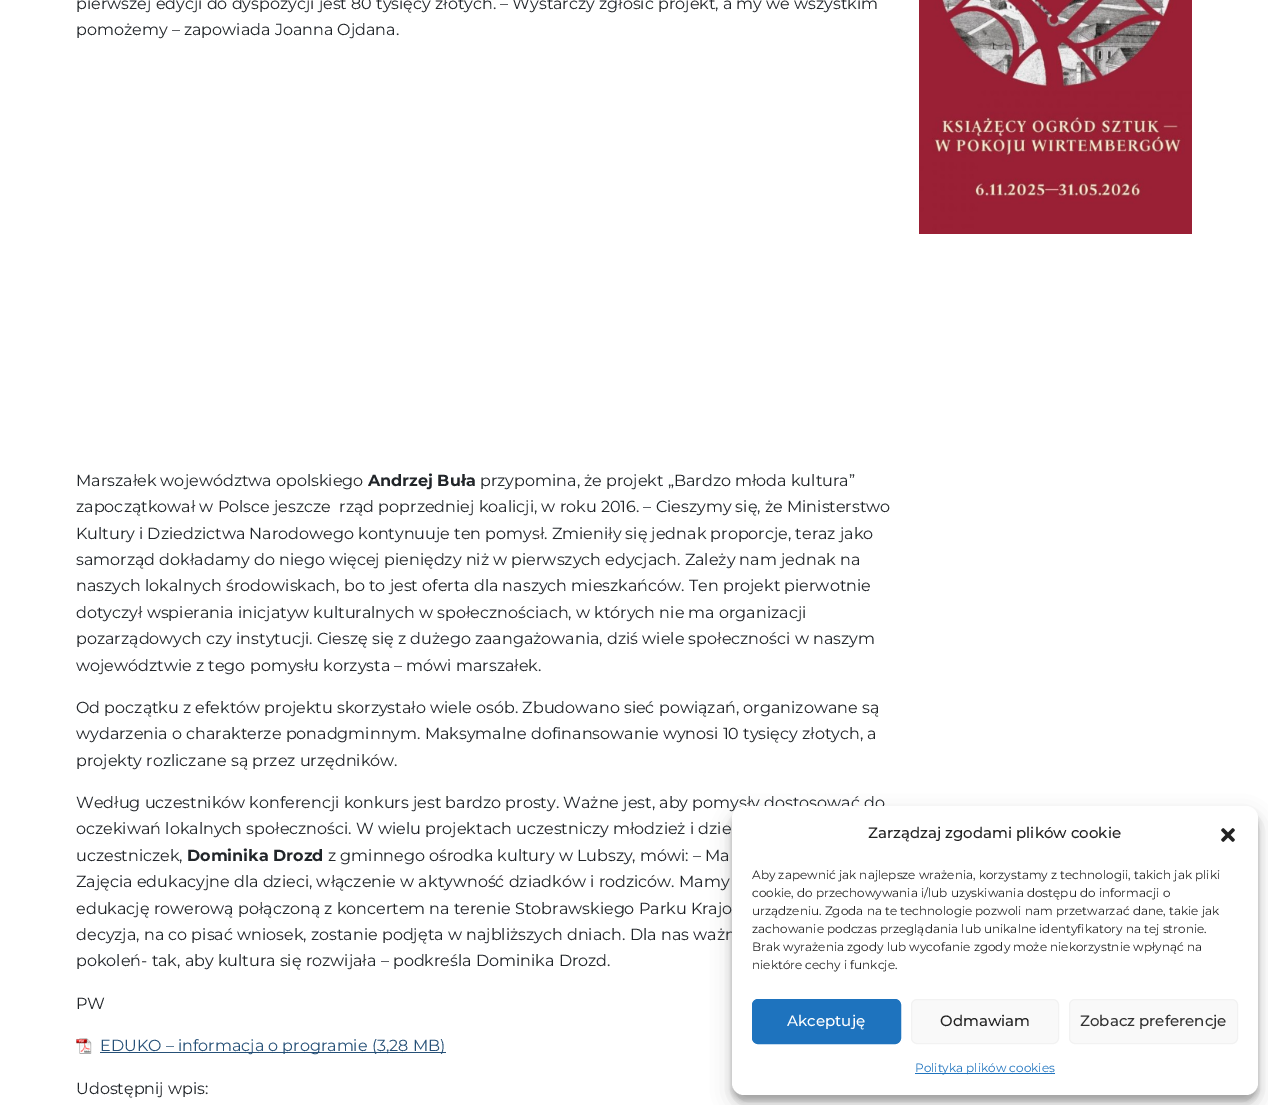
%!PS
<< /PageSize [1268 1105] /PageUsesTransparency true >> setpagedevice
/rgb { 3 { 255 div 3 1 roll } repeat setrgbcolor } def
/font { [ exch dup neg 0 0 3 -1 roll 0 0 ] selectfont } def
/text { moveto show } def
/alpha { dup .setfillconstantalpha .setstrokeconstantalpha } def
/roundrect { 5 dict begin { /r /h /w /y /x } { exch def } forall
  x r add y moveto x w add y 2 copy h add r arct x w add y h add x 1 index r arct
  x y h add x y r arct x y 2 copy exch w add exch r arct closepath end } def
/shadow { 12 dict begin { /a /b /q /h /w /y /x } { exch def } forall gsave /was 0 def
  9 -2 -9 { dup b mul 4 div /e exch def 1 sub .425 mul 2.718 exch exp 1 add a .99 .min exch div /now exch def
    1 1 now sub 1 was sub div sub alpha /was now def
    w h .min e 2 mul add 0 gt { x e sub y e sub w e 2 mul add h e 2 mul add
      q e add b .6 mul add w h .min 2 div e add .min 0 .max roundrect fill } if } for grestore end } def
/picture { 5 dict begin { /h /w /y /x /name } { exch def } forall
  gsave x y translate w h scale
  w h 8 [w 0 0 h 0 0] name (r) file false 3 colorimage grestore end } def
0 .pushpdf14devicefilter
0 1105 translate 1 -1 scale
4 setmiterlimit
255 255 255 rgb
0 0 1268 1105 rectfill
(img_01.rgb) 76 1038 16 16 picture
38 80 119 rgb
100 1052 346 1 rectfill
(img_02.rgb) 919 0 273 234 picture
0 0 0 rgb
732 812 526 289 12 3 0.23 shadow
732 816 526 289 12 10 0.19 shadow
/Montserrat-Regular 16 font
33 37 41 rgb
(pierwszej edycji do dyspozycji jest 80 tysięcy złotych. – Wystarczy zgłosić projekt, a my we wszystkim) 76 9 text
(pomożemy – zapowiada Joanna Ojdana.) 76 35 text
(Marszałek województwa opolskiego) 76 486 text
/Montserrat-Bold 16 font
(Andrzej Buła) 368 486 text
/Montserrat-Regular 16 font
(przypomina, że projekt „Bardzo młoda kultura”) 480 486 text
(zapoczątkował w Polsce jeszcze  rząd poprzedniej koalicji, w roku 2016. – Cieszymy się, że Ministerstwo) 76 512 text
(Kultury i Dziedzictwa Narodowego kontynuuje ten pomysł. Zmieniły się jednak proporcje, teraz jako) 76 539 text
(samorząd dokładamy do niego więcej pieniędzy niż w pierwszych edycjach. Zależy nam jednak na) 76 565 text
(naszych lokalnych środowiskach, bo to jest oferta dla naszych mieszkańców. Ten projekt pierwotnie) 76 591 text
(dotyczył wspierania inicjatyw kulturalnych w społecznościach, w których nie ma organizacji) 76 618 text
(pozarządowych czy instytucji. Cieszę się z dużego zaangażowania, dziś wiele społeczności w naszym) 76 644 text
(województwie z tego pomysłu korzysta – mówi marszałek.) 76 671 text
(Od początku z efektów projektu skorzystało wiele osób. Zbudowano sieć powiązań, organizowane są) 76 713 text
(wydarzenia o charakterze ponadgminnym. Maksymalne dofinansowanie wynosi 10 tysięcy złotych, a) 76 739 text
(projekty rozliczane są przez urzędników.) 76 766 text
(Według uczestników konferencji konkurs jest bardzo prosty. Ważne jest, aby pomysły dostosować do) 76 808 text
(oczekiwań lokalnych społeczności. W wielu projektach uczestniczy młodzież i dzie) 76 834 text
(uczestniczek,) 76 861 text
/Montserrat-Bold 16 font
(Dominika Drozd) 187 861 text
/Montserrat-Regular 16 font
(z gminnego ośrodka kultury w Lubszy, mówi: – Ma) 328 861 text
(Zajęcia edukacyjne dla dzieci, włączenie w aktywność dziadków i rodziców. Mamy) 76 887 text
(edukację rowerową połączoną z koncertem na terenie Stobrawskiego Parku Krajo) 76 914 text
(decyzja, na co pisać wniosek, zostanie podjęta w najbliższych dniach. Dla nas ważn) 76 940 text
(pokoleń- tak, aby kultura się rozwijała – podkreśla Dominika Drozd.) 76 966 text
(PW) 76 1009 text
38 80 119 rgb
(EDUKO – informacja o programie \(3,28 MB\)) 100 1051 text
33 37 41 rgb
(Udostępnij wpis:) 76 1094 text
255 255 255 rgb
732 806 526 289 12 roundrect fill
/Montserrat-Medium 15 font
34 34 34 rgb
(Zarządzaj zgodami plików cookie) 868 838 text
(img_03.rgb) 1221 828 14 14 picture
/Montserrat-Regular 12 font
(Aby zapewnić jak najlepsze wrażenia, korzystamy z technologii, takich jak pliki) 752 879 text
(cookie, do przechowywania i/lub uzyskiwania dostępu do informacji o) 752 897 text
(urządzeniu. Zgoda na te technologie pozwoli nam przetwarzać dane, takie jak) 752 915 text
(zachowanie podczas przeglądania lub unikalne identyfikatory na tej stronie.) 752 933 text
(Brak wyrażenia zgody lub wycofanie zgody może niekorzystnie wpłynąć na) 752 951 text
(niektóre cechy i funkcje.) 752 969 text
30 115 190 rgb
752.5 999.5 148 44 5.5 roundrect gsave fill grestore
stroke
/Montserrat-Medium 15 font
255 255 255 rgb
(Akceptuję) 787 1026 text
249 249 249 rgb
911.5 999.5 147 44 5.5 roundrect gsave fill grestore
242 242 242 rgb
stroke
34 34 34 rgb
(Odmawiam) 940 1026 text
249 249 249 rgb
1069.5 999.5 168 44 5.5 roundrect gsave fill grestore
242 242 242 rgb
stroke
51 51 51 rgb
(Zobacz preferencje) 1080 1026 text
30 115 190 rgb
915 1073 140 1 rectfill
/Montserrat-Regular 12 font
(Polityka plików cookies) 915 1072 text
.poppdf14devicefilter showpage
